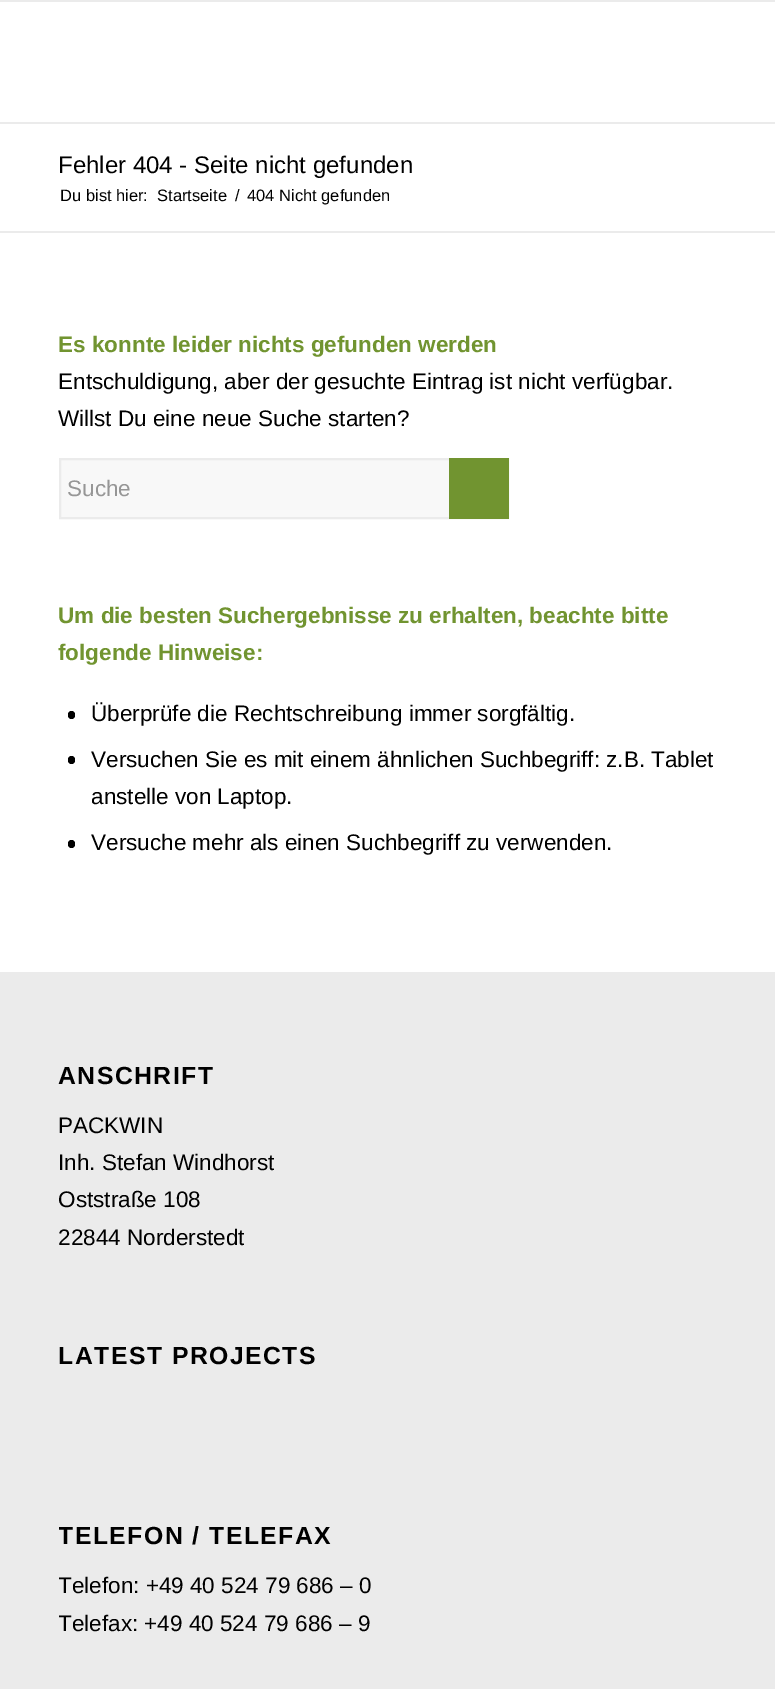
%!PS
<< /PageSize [775 1689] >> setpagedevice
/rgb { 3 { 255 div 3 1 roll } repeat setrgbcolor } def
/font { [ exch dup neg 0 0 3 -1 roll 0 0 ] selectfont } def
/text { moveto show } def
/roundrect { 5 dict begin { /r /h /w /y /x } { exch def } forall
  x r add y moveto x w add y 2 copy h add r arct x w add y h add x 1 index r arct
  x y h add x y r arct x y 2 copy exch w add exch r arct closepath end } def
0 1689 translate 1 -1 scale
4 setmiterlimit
255 255 255 rgb
0 0 775 1689 rectfill
235 235 235 rgb
0 0 775 2 rectfill
0 122 775 2 rectfill
0 231 775 2 rectfill
248 248 248 rgb
61 460 388 57 rectfill
235 235 235 rgb
2 setlinewidth
60 459 448 59 rectstroke
113 148 48 rgb
449 458 60 61 rectfill
0 0 0 rgb
68 711 7 8 3.5 roundrect fill
68 756 7 8 3.5 roundrect fill
68 840 7 8 3.5 roundrect fill
235 235 235 rgb
0 972 775 717 rectfill
/LiberationSans-Regular 24 font
0 0 0 rgb
(Fehler 404 - Seite nicht gefunden) 58 173 text
/LiberationSans-Regular 16.5 font
(Du bist hier:) 60 201 text
(Startseite) 157 201 text
(/) 235 201 text
(404 Nicht gefunden) 247 201 text
/LiberationSans-Bold 22.5 font
113 148 48 rgb
(Es konnte leider nichts gefunden werden) 58 352 text
/LiberationSans-Regular 22.5 font
0 0 0 rgb
(Entschuldigung, aber der gesuchte Eintrag ist nicht verfügbar.) 58 389 text
(Willst Du eine neue Suche starten?) 58 426 text
150 150 150 rgb
(Suche) 67 496 text
/LiberationSans-Bold 22.5 font
113 148 48 rgb
(Um die besten Suchergebnisse zu erhalten, beachte bitte) 58 623 text
(folgende Hinweise:) 58 660 text
/LiberationSans-Regular 22.5 font
0 0 0 rgb
(Überprüfe die Rechtschreibung immer sorgfältig.) 91 721 text
(Versuchen Sie es mit einem ähnlichen Suchbegriff: z.B. Tablet) 91 767 text
(anstelle von Laptop.) 91 804 text
(Versuche mehr als einen Suchbegriff zu verwenden.) 91 850 text
/LiberationSans-Bold 24.75 font
58 1084 moveto 1.5 0 (ANSCHRIFT) ashow
/LiberationSans-Regular 22.5 font
(PACKWIN) 58 1133 text
(Inh. Stefan Windhorst) 58 1170 text
(Oststraße 108) 58 1207 text
(22844 Norderstedt) 58 1245 text
/LiberationSans-Bold 24.75 font
58 1364 moveto 1.5 0 (LATEST PROJECTS) ashow
gsave
59 1500 658 162 rectclip
58 1544 moveto 1.5 0 (TELEFON / TELEFAX) ashow
/LiberationSans-Regular 22.5 font
(Telefon: +49 40 524 79 686 – 0) 58 1593 text
(Telefax: +49 40 524 79 686 – 9) 58 1631 text
grestore
showpage
